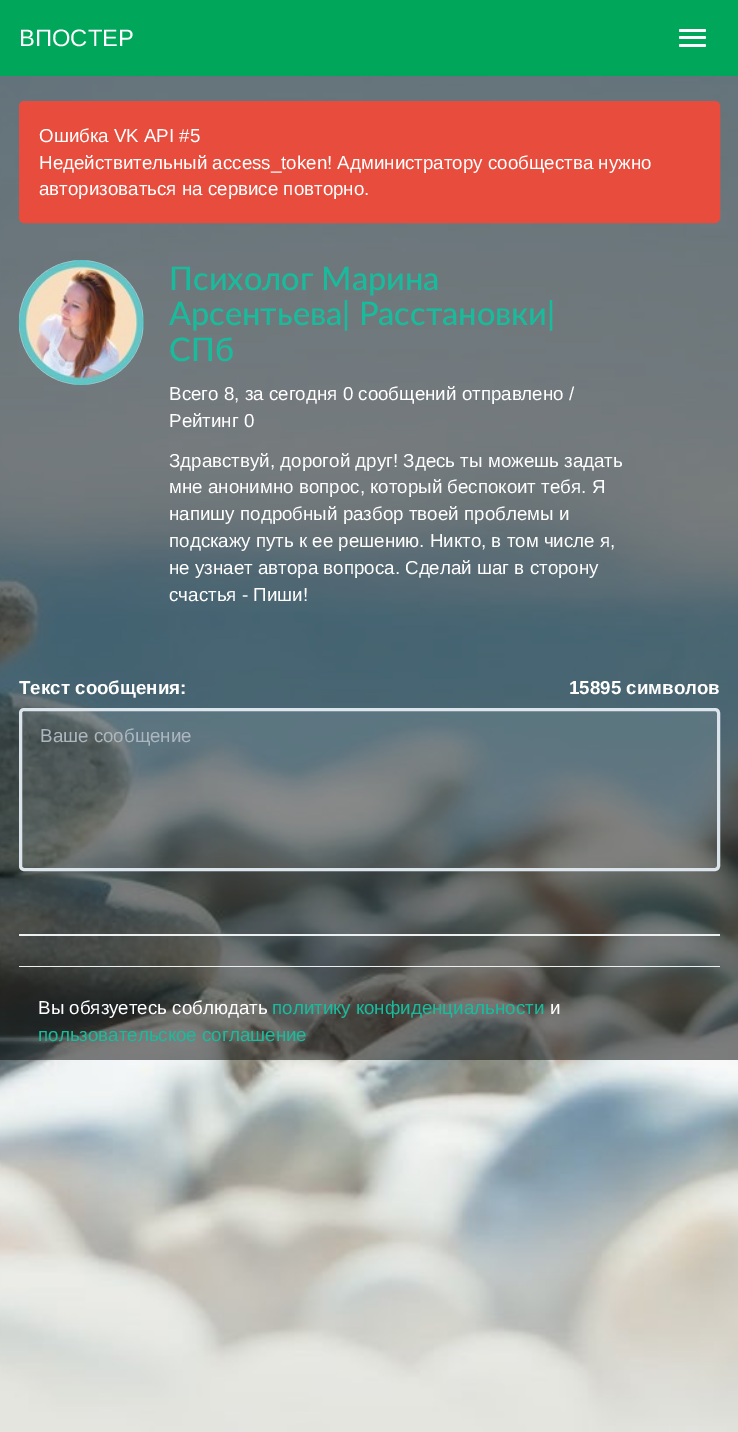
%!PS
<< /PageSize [738 1432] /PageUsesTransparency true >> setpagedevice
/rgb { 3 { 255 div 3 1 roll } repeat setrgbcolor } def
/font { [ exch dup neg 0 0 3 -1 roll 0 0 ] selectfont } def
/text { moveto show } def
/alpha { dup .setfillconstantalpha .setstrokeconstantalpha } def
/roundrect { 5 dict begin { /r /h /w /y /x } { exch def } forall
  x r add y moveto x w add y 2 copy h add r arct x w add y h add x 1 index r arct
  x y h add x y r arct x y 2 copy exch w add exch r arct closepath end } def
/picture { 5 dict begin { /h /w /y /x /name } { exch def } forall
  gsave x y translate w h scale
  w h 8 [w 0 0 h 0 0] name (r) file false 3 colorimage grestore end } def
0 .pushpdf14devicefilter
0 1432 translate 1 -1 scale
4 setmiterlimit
255 255 255 rgb
0 0 738 1432 rectfill
(img_01.rgb) 0 76 738 1356 picture
0 166 90 rgb
0 0 738 76 rectfill
255 255 255 rgb
679 29 27 3 1.5 roundrect fill
679 36 27 3 1.5 roundrect fill
679 44 27 3 1.5 roundrect fill
0.5 alpha
0 0 0 rgb
0 76 738 984 rectfill
1 alpha
231 76 60 rgb
19.5 101.5 700 121 4.5 roundrect gsave fill grestore
stroke
(img_02.rgb) 18 260 126 125 picture
0.1 alpha
255 255 255 rgb
20.5 709.5 698 160 3.5 roundrect fill
1 alpha
220 228 236 rgb
3 setlinewidth
20.5 709.5 698 160 3.5 roundrect stroke
236 240 241 rgb
19 934 701 2 rectfill
19 966 701 1 rectfill
/LiberationSans-Regular 23.75 font
255 255 255 rgb
(ВПОСТЕР) 19 46 text
/LiberationSans-Regular 18.75 font
(Ошибка VK API #5) 39 142 text
(Недействительный access_token! Администратору сообщества нужно) 39 169 text
(авторизоваться на сервисе повторно.) 39 195 text
/Lato-Medium 32.5 font
24 188 156 rgb
(Психолог Марина) 169 290 text
(Арсентьева| Расстановки|) 169 325 text
(СПб) 169 361 text
/LiberationSans-Regular 18.75 font
255 255 255 rgb
(Всего 8, за сегодня 0 сообщений отправлено /) 169 400 text
(Рейтинг 0) 169 427 text
(Здравствуй, дорогой друг! Здесь ты можешь задать) 169 467 text
(мне анонимно вопрос, который беспокоит тебя. Я) 169 493 text
(напишу подробный разбор твоей проблемы и) 169 520 text
(подскажу путь к ее решению. Никто, в том числе я,) 169 547 text
(не узнает автора вопроса. Сделай шаг в сторону) 169 574 text
(счастья - Пиши!) 169 601 text
/LiberationSans-Bold 18.75 font
(Текст сообщения:) 19 694 text
(15895 символов) 569 694 text
/LiberationSans-Regular 18.75 font
172 182 192 rgb
(Ваше сообщение) 40 742 text
255 255 255 rgb
(Вы обязуетесь соблюдать) 38 1014 text
24 188 156 rgb
(политику конфиденциальности) 272 1014 text
255 255 255 rgb
(и) 550 1014 text
24 188 156 rgb
(пользовательское соглашение) 38 1041 text
.poppdf14devicefilter showpage
